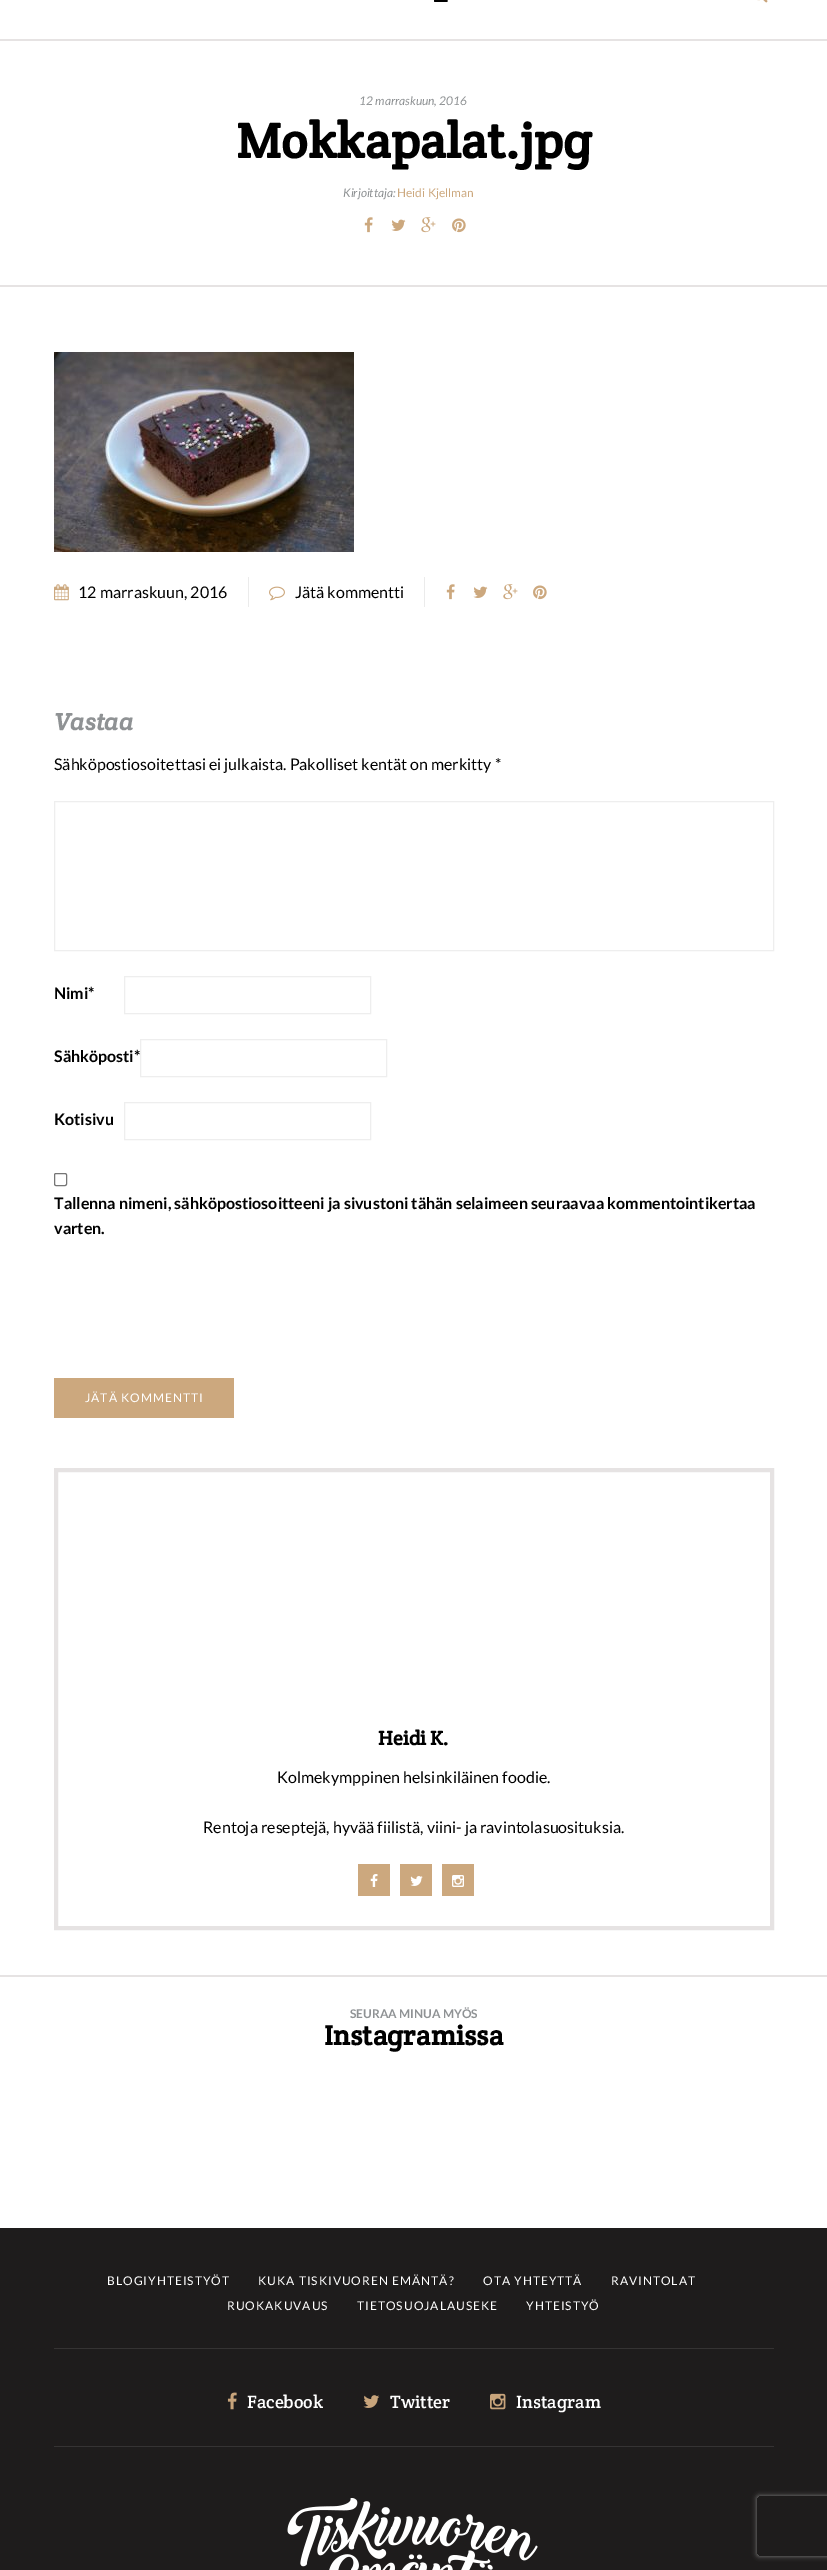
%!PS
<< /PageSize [827 2570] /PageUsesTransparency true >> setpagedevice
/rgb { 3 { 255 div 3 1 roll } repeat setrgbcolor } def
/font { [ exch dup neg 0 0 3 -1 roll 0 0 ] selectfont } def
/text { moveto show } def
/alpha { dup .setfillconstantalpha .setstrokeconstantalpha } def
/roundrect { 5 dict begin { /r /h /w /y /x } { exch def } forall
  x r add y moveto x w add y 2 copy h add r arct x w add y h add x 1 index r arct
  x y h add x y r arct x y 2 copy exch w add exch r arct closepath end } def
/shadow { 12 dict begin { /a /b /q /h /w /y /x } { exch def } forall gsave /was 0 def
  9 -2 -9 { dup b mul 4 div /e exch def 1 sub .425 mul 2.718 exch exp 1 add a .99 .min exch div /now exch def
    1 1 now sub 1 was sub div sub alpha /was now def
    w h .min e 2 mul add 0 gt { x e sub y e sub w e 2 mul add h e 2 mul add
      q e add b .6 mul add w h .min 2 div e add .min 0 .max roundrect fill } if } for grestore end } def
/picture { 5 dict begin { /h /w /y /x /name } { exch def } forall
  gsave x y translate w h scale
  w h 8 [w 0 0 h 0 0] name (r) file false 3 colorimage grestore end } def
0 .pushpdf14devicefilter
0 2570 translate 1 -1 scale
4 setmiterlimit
255 255 255 rgb
0 0 827 2570 rectfill
(img_01.rgb) 434 0 14 2 picture
(img_02.rgb) 757 0 11 3 picture
230 227 227 rgb
0 39 827 2 rectfill
0 285 827 2 rectfill
(img_03.rgb) 364 217 9 16 picture
(img_04.rgb) 391 219 15 12 picture
(img_05.rgb) 421 217 15 16 picture
(img_06.rgb) 452 218 14 15 picture
(img_07.rgb) 54 352 300 200 picture
235 235 235 rgb
248 577 1 30 rectfill
(img_08.rgb) 54 584 15 17 picture
424 577 1 30 rectfill
(img_09.rgb) 269 586 16 15 picture
(img_03.rgb) 446 584 9 16 picture
(img_04.rgb) 473 586 15 12 picture
(img_05.rgb) 503 584 15 16 picture
(img_06.rgb) 533 585 14 15 picture
238 238 238 rgb
54.5 801.5 719 149 rectstroke
124.5 976.5 246 37 rectstroke
140.5 1039.5 246 37 rectstroke
124.5 1102.5 246 37 rectstroke
118 118 118 rgb
54.5 1173.5 12 12 1.5 roundrect stroke
204 168 126 rgb
54 1378 180 40 rectfill
230 227 227 rgb
4 setlinewidth
56 1470 716 458 rectstroke
204 168 126 rgb
358 1864 32 32 rectfill
(img_10.rgb) 370 1874 8 13 picture
400 1864 32 32 rectfill
(img_11.rgb) 410 1876 13 10 picture
442 1864 32 32 rectfill
(img_12.rgb) 452 1875 12 12 picture
230 227 227 rgb
0 1975 827 2 rectfill
30 28 28 rgb
0 2228 827 342 rectfill
53 51 51 rgb
54 2348 720 1 rectfill
54 2446 720 1 rectfill
(img_13.rgb) 227 2392 10 18 picture
(img_14.rgb) 363 2395 17 13 picture
(img_15.rgb) 490 2393 16 17 picture
(img_16.rgb) 287 2498 251 72 picture
gsave
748 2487 moveto 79 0 rlineto 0 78 rlineto -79 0 rlineto closepath 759 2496 moveto 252 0 rlineto 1 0 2 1 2 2 rcurveto 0 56 rlineto 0 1 -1 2 -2 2 rcurveto -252 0 rlineto -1 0 -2 -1 -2 -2 rcurveto 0 -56 rlineto 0 -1 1 -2 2 -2 rcurveto closepath eoclip newpath
128 128 128 rgb
757 2496 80 60 2 2.5 1 shadow
grestore
/Lato-Italic 12 font
143 146 148 rgb
(12 marraskuun, 2016) 359 105 text
/CreteRound-Bold 50 font
0 0 0 rgb
(Mokkapalat.jpg) 236 158 text
/Lato-Italic 12 font
143 146 148 rgb
(Kirjoittaja:) 343 197 text
/Lato-Regular 12 font
204 168 126 rgb
(Heidi Kjellman) 397 197 text
/Lato-Regular 16 font
0 0 0 rgb
(12 marraskuun, 2016) 78 598 text
(Jätä kommentti) 295 598 text
/CreteRound-BoldItalic 24 font
143 146 148 rgb
(Vastaa) 54 730 text
/Lato-Regular 16 font
0 0 0 rgb
(Sähköpostiosoitettasi ei julkaista. Pakolliset kentät on merkitty *) 54 770 text
/Lato-Bold 16 font
(Nimi*) 54 999 text
(Sähköposti*) 54 1062 text
(Kotisivu) 54 1125 text
(Tallenna nimeni, sähköpostiosoitteeni ja sivustoni tähän selaimeen seuraavaa kommentointikertaa) 54 1209 text
(varten.) 54 1234 text
/Lato-Regular 12 font
255 255 255 rgb
85 1402 moveto 1 0 (JÄTÄ KOMMENTTI) ashow
/CreteRound-Bold 20 font
0 0 0 rgb
(Heidi K.) 378 1745 text
/Lato-Regular 16 font
(Kolmekymppinen helsinkiläinen foodie.) 277 1783 text
(Rentoja reseptejä, hyvää fiilistä, viini- ja ravintolasuosituksia.) 203 1833 text
/Lato-Bold 12 font
143 146 148 rgb
(SEURAA MINUA MYÖS) 350 2018 text
/CreteRound-Bold 28 font
0 0 0 rgb
(Instagramissa) 324 2045 text
/Lato-Regular 12 font
255 255 255 rgb
107 2285 moveto 1 0 (BLOGIYHTEISTYÖT) ashow
258 2285 moveto 1 0 (KUKA TISKIVUOREN EMÄNTÄ?) ashow
483 2285 moveto 1 0 (OTA YHTEYTTÄ) ashow
611 2285 moveto 1 0 (RAVINTOLAT) ashow
227 2310 moveto 1 0 (RUOKAKUVAUS) ashow
357 2310 moveto 1 0 (TIETOSUOJALAUSEKE) ashow
526 2310 moveto 1 0 (YHTEISTYÖ) ashow
/CreteRound-Regular 18 font
(Facebook) 247 2408 text
(Twitter) 390 2408 text
(Instagram) 516 2408 text
.poppdf14devicefilter showpage
